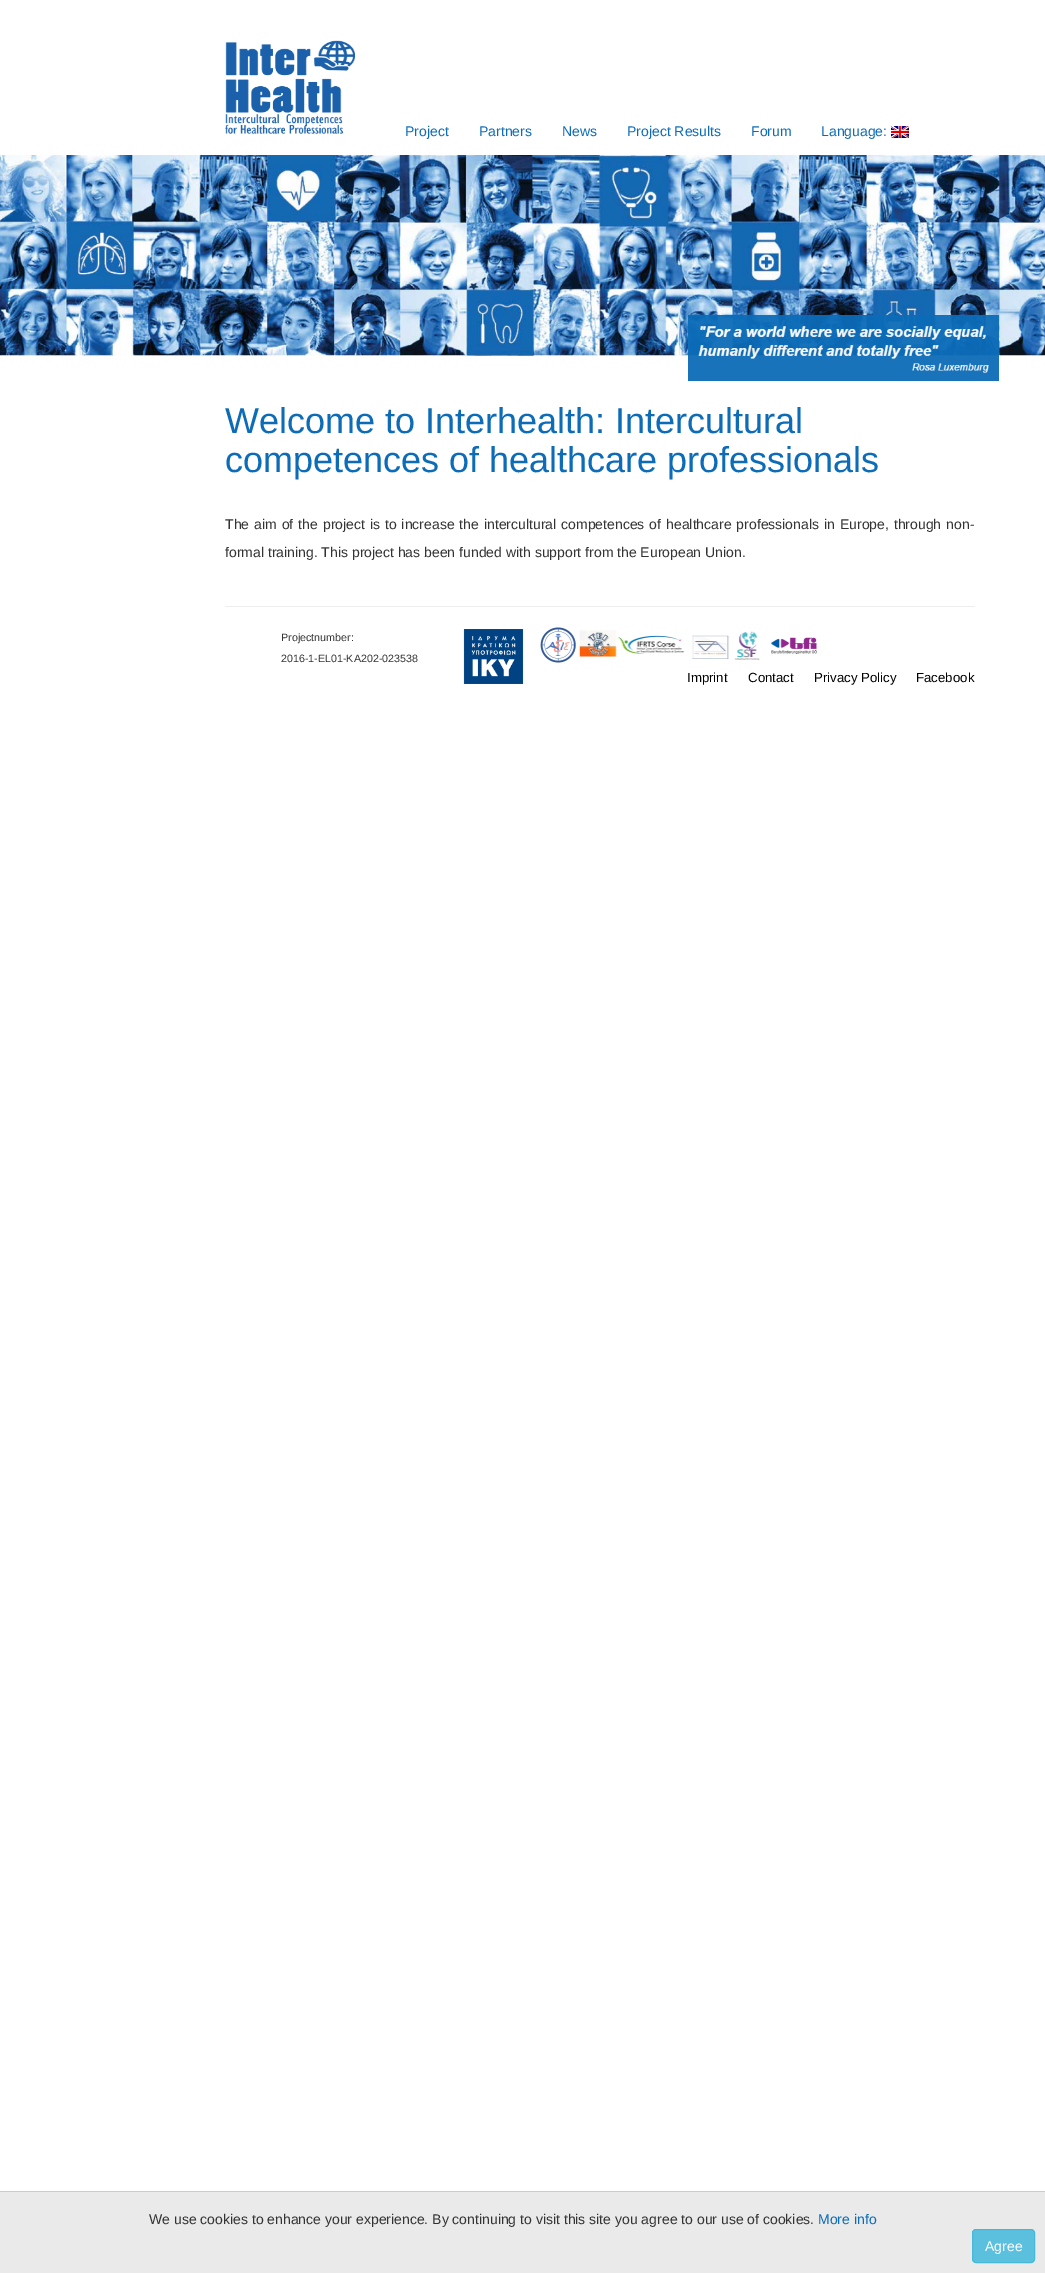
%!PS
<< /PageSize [1045 2273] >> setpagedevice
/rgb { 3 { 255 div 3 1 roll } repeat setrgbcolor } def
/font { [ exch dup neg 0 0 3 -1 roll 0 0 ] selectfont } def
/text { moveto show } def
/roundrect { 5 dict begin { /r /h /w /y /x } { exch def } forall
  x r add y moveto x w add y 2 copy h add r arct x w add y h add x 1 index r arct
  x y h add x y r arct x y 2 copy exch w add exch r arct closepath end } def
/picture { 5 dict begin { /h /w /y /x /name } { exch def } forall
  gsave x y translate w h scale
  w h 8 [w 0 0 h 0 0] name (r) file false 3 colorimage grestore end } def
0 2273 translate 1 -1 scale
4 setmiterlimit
255 255 255 rgb
0 0 1045 2273 rectfill
(img_01.rgb) 225 40 130 94 picture
(img_02.rgb) 891 126 18 12 picture
(img_03.rgb) 0 155 1045 226 picture
238 238 238 rgb
225 606 750 1 rectfill
(img_04.rgb) 463 629 61 55 picture
(img_05.rgb) 540 627 278 36 picture
234 234 234 rgb
0 2192 1045 81 rectfill
202 202 202 rgb
0 2191 1045 1 rectfill
91 192 222 rgb
972.5 2229.5 62 33 3.5 roundrect gsave fill grestore
70 184 218 rgb
stroke
/LiberationSans-Regular 14 font
12 108 184 rgb
(Project) 405 136 text
(Partners) 479 136 text
(News) 562 136 text
(Project Results) 627 136 text
(Forum) 751 136 text
(Language:) 821 136 text
/LiberationSans-Regular 36 font
(Welcome to Interhealth: Intercultural) 225 433 text
(competences of healthcare professionals) 225 472 text
/LiberationSans-Regular 14 font
51 51 51 rgb
225 529 moveto 1.1 0 32 (The aim of the project is to increase the intercultural competences of healthcare professionals in Europe, through non-) widthshow
(formal training. This project has been funded with support from the European Union.) 225 557 text
/LiberationSans-Regular 10.7 font
(Projectnumber:) 281 641 text
(2016-1-EL01-KA202-023538) 281 662 text
/LiberationSans-Regular 13.25 font
0 0 0 rgb
(Imprint) 687 682 text
(Contact) 748 682 text
(Privacy Policy) 814 682 text
(Facebook) 916 682 text
/LiberationSans-Regular 14 font
51 51 51 rgb
(We use cookies to enhance your experience. By continuing to visit this site you agree to our use of cookies.) 149 2224 text
12 108 184 rgb
(More info) 818 2224 text
255 255 255 rgb
(Agree) 985 2251 text
showpage
